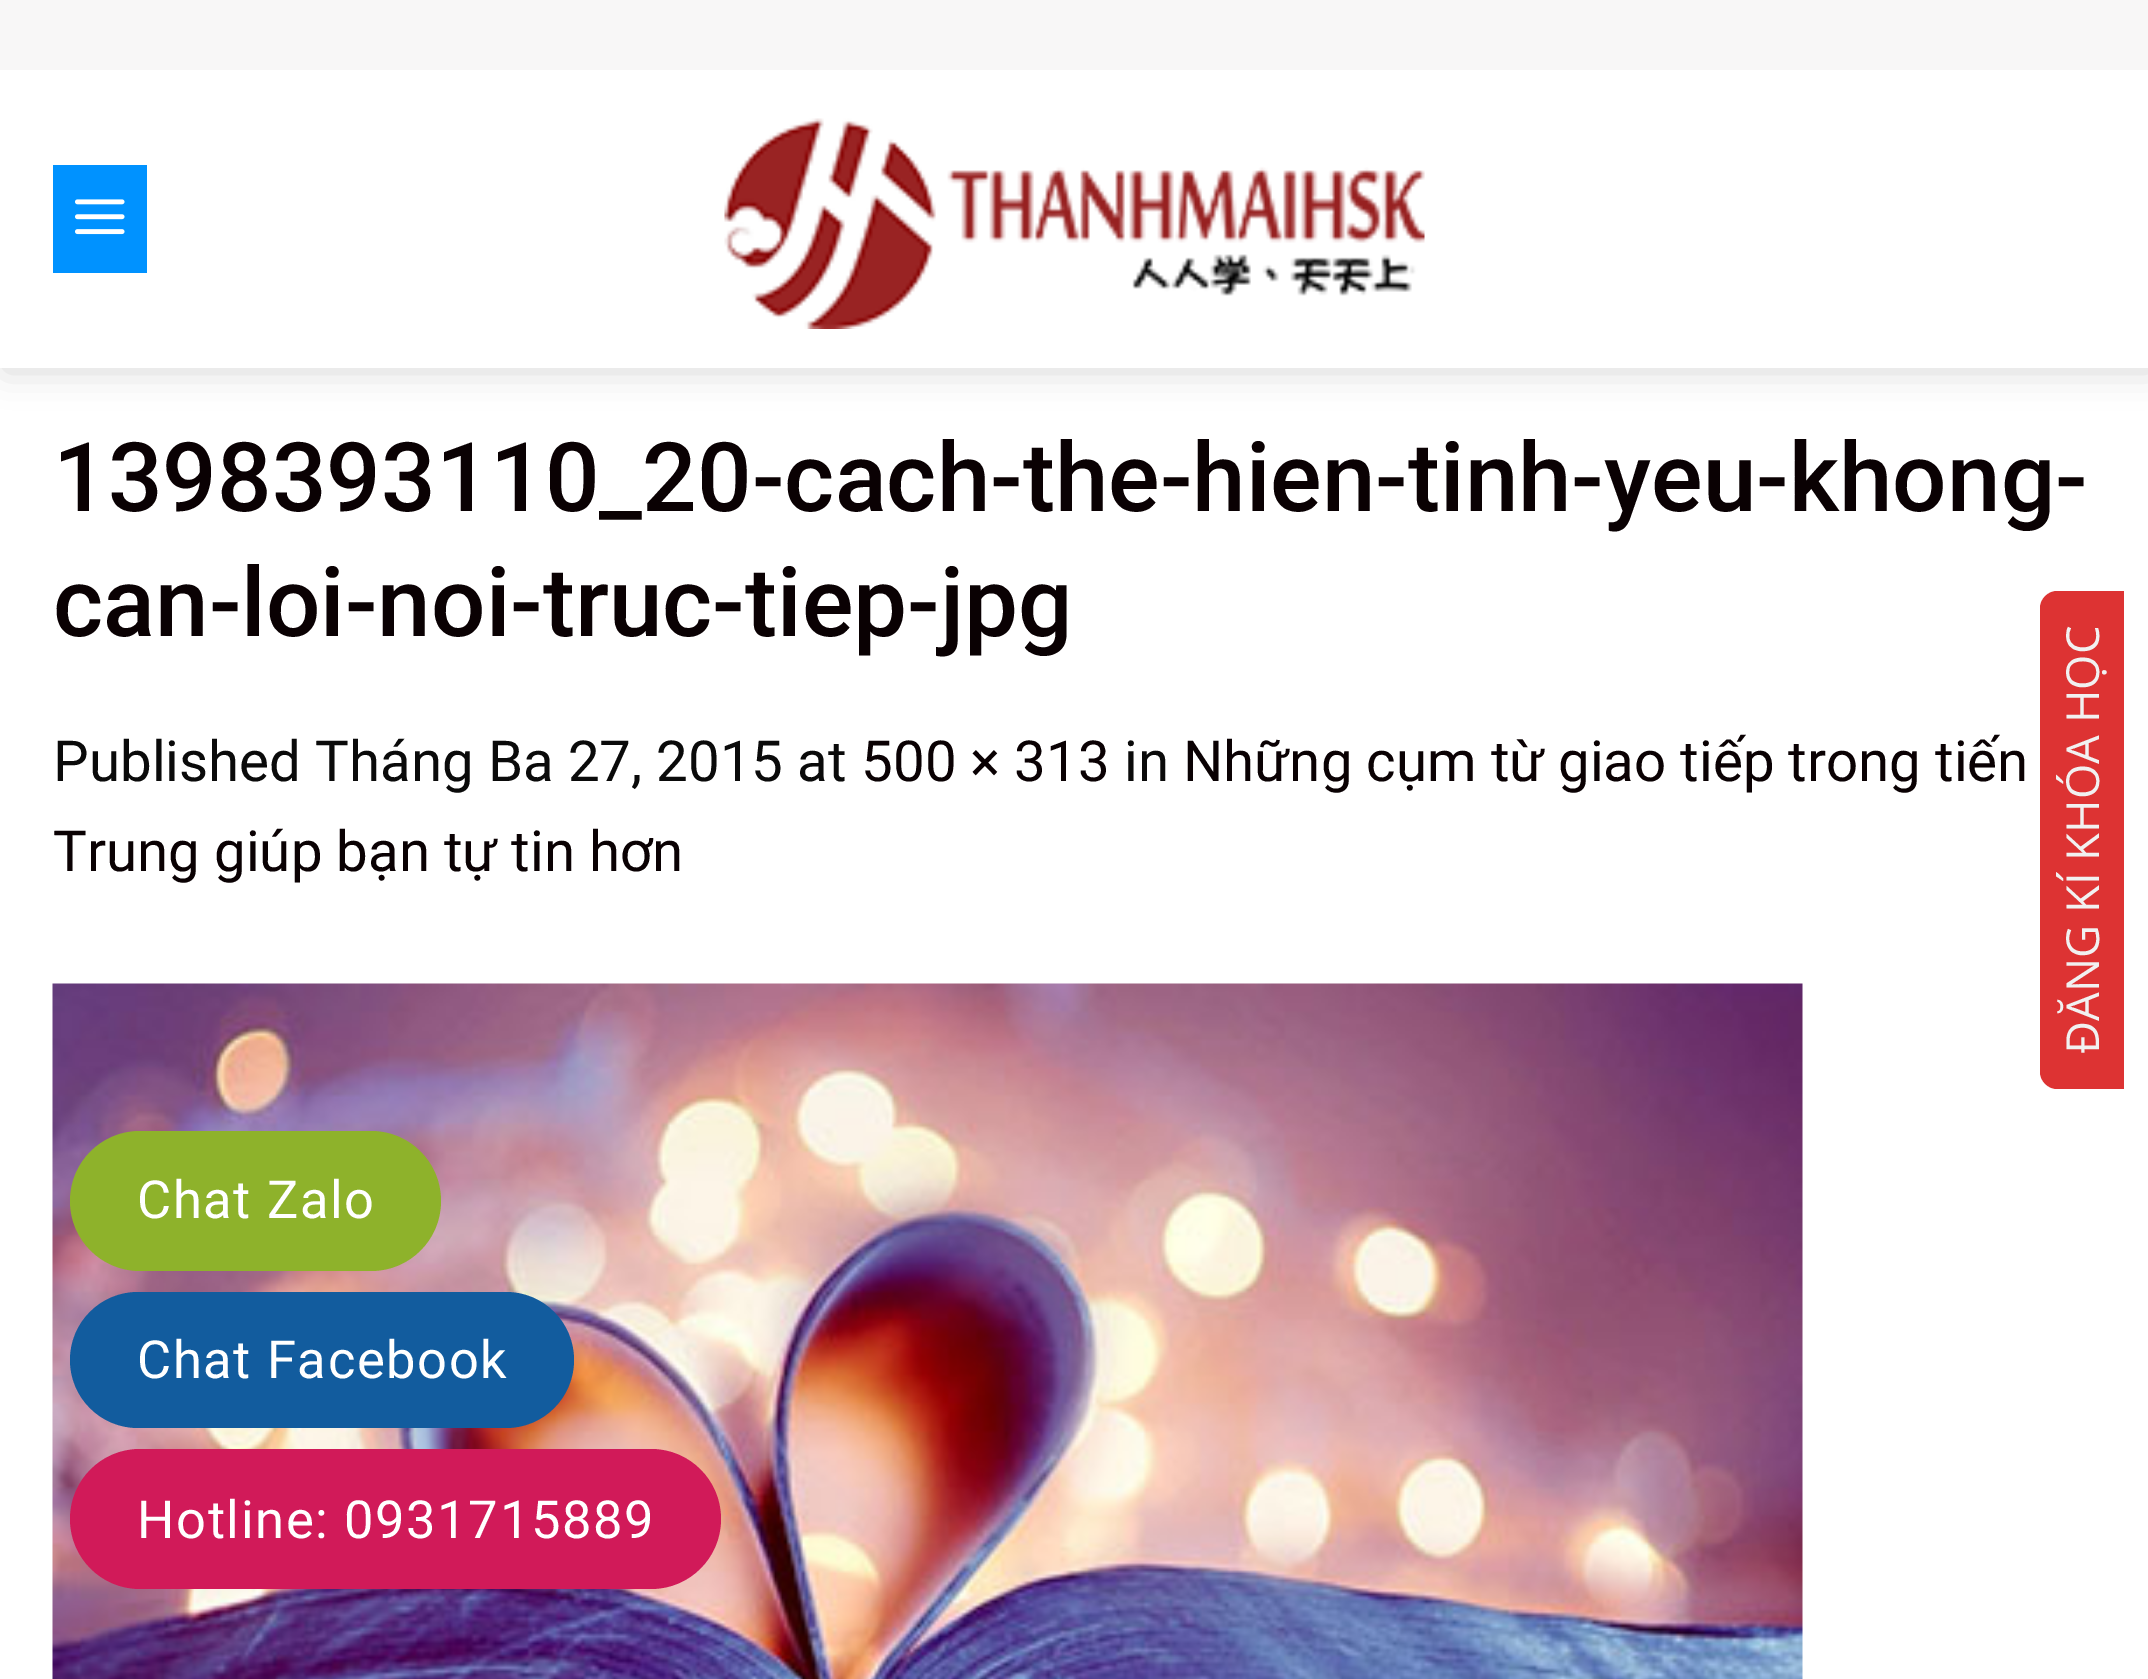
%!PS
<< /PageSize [2148 1679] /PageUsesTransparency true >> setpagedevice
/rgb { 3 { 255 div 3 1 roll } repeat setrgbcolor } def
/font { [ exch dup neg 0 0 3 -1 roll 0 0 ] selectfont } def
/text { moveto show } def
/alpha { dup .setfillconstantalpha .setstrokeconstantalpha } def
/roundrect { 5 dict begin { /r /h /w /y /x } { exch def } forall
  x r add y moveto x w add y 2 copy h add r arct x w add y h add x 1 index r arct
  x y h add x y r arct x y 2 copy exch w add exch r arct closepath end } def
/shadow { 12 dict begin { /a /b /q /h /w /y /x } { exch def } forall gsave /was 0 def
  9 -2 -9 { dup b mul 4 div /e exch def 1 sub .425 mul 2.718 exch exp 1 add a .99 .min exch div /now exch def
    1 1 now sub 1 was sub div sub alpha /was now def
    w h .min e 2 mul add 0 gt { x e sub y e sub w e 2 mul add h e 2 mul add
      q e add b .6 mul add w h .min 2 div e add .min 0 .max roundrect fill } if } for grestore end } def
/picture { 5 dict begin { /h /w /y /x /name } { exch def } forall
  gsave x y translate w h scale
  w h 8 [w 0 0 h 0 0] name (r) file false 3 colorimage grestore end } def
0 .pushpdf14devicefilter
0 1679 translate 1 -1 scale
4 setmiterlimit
255 255 255 rgb
0 0 2148 1679 rectfill
0 0 0 rgb
4 4 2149 367 0 17.5 0.15 shadow
255 255 255 rgb
0 70 2148 298 rectfill
248 247 247 rgb
0 0 2148 70 rectfill
0 146 255 rgb
53 165 94 108 rectfill
(img_01.rgb) 75 199 50 36 picture
(img_02.rgb) 724 118 701 211 picture
(img_03.rgb) 52 983 1751 696 picture
221 51 51 rgb
2040 1072 moveto 0 -464 rlineto 0 -9 8 -17 17 -17 rcurveto 67 0 rlineto 0 498 rlineto -67 0 rlineto -9 0 -17 -8 -17 -17 rcurveto closepath fill
142 178 43 rgb
70 1131 371 140 70 roundrect fill
18 92 158 rgb
70 1292 504 136 68 roundrect fill
209 26 89 rgb
70 1449 651 140 70 roundrect fill
/Roboto-Medium 96.15 font
10 1 3 rgb
(1398393110_20-cach-the-hien-tinh-yeu-khong-) 53 511 text
(can-loi-noi-truc-tiep-jpg) 53 636 text
/Roboto-Regular 56.5 font
10 10 10 rgb
(Published Tháng Ba 27, 2015 at) 53 781 text
10 1 3 rgb
(500 × 313) 861 781 text
10 10 10 rgb
(in) 1124 781 text
10 1 3 rgb
(Những cụm từ giao tiếp trong tiến) 1183 781 text
(Trung giúp bạn tự tin hơn) 53 871 text
/OpenSans-Regular 45.5 font
241 241 241 rgb
gsave 2099 1054 translate -90 rotate 0 0 moveto (ĐĂNG KÍ KHÓA HỌC) show grestore
/Roboto-Regular 52.5 font
255 255 255 rgb
137 1218 moveto 1.6 0 (Chat Zalo) ashow
137 1378 moveto 1.6 0 (Chat Facebook) ashow
137 1538 moveto 1.6 0 (Hotline: 0931715889) ashow
.poppdf14devicefilter showpage
